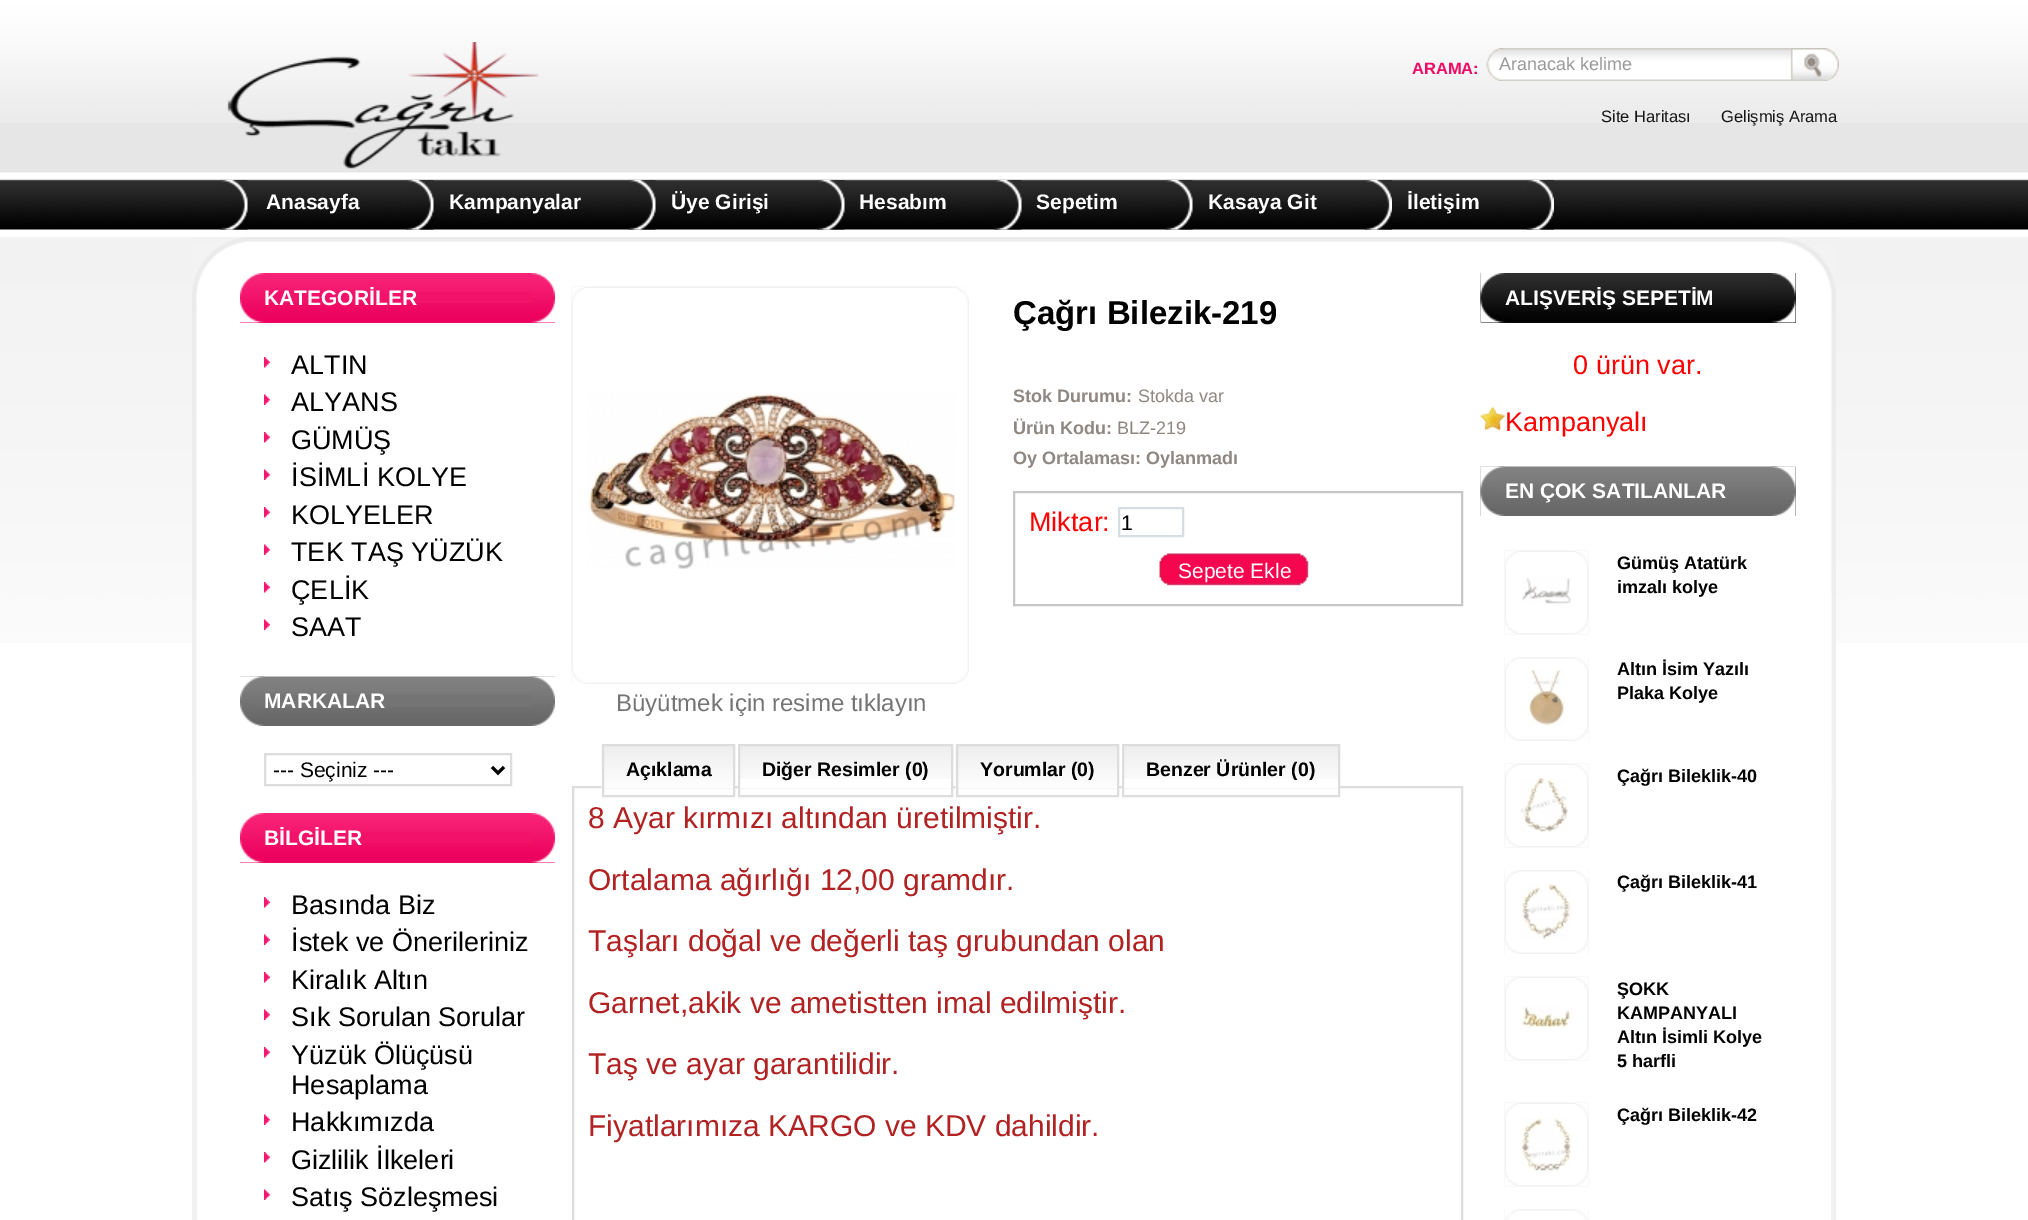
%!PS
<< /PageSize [2028 1220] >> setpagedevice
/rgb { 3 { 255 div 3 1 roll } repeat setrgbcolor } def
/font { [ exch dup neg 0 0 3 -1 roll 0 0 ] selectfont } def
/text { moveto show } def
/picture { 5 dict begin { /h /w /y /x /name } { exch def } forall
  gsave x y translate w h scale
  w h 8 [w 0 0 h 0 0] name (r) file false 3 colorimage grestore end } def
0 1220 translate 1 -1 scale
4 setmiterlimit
255 255 255 rgb
0 0 2028 1220 rectfill
230 230 230 rgb
0 123 2028 50 rectfill
(img_01.rgb) 0 0 2028 123 picture
(img_02.rgb) 227 42 312 127 picture
(img_03.rgb) 1486 48 353 33 picture
(img_04.rgb) 0 172 2028 65 picture
(img_05.rgb) 220 180 28 50 picture
(img_06.rgb) 406 180 28 50 picture
(img_07.rgb) 628 180 28 50 picture
(img_08.rgb) 817 180 28 50 picture
(img_09.rgb) 994 180 28 50 picture
(img_10.rgb) 1165 180 28 50 picture
(img_11.rgb) 1365 180 27 50 picture
(img_12.rgb) 1527 180 27 50 picture
(img_13.rgb) 0 237 2028 406 picture
241 241 241 rgb
192 801 5 419 rectfill
1831 801 5 419 rectfill
(img_14.rgb) 246 237 1536 564 picture
(img_15.rgb) 192 237 54 564 picture
(img_16.rgb) 1782 237 54 564 picture
242 18 106 rgb
240 292 315 31 rectfill
(img_17.rgb) 264 273 267 19 picture
(img_18.rgb) 240 303 315 20 picture
(img_19.rgb) 240 273 24 24 picture
(img_20.rgb) 531 273 24 24 picture
(img_21.rgb) 240 298 24 25 picture
(img_22.rgb) 531 298 24 25 picture
(img_23.rgb) 264 357 6 11 picture
(img_24.rgb) 264 394 6 11 picture
(img_23.rgb) 264 432 6 11 picture
(img_24.rgb) 264 469 6 11 picture
(img_23.rgb) 264 507 6 11 picture
(img_24.rgb) 264 544 6 11 picture
(img_23.rgb) 264 582 6 11 picture
(img_24.rgb) 264 619 6 11 picture
116 116 116 rgb
240 695 315 12 rectfill
(img_25.rgb) 240 676 315 19 picture
(img_26.rgb) 264 707 267 19 picture
(img_27.rgb) 240 676 24 25 picture
(img_28.rgb) 531 676 24 25 picture
(img_29.rgb) 240 702 24 24 picture
(img_30.rgb) 531 703 24 23 picture
221 221 221 rgb
2 setlinewidth
265 754 246 31 rectstroke
0 0 0 rgb
3 setlinewidth
492 767 moveto 6 6 rlineto 6 -6 rlineto stroke
242 18 106 rgb
240 832 315 31 rectfill
(img_17.rgb) 264 813 267 19 picture
(img_18.rgb) 240 843 315 20 picture
(img_19.rgb) 240 813 24 24 picture
(img_20.rgb) 531 813 24 24 picture
(img_21.rgb) 240 838 24 25 picture
(img_22.rgb) 531 838 24 25 picture
(img_23.rgb) 264 897 6 11 picture
(img_24.rgb) 264 934 6 11 picture
(img_23.rgb) 264 972 6 11 picture
(img_24.rgb) 264 1009 6 11 picture
(img_23.rgb) 264 1047 6 11 picture
(img_24.rgb) 264 1114 6 11 picture
(img_23.rgb) 264 1152 6 11 picture
(img_24.rgb) 264 1189 6 11 picture
199 199 199 rgb
2 setlinewidth
1014 492 448 113 rectstroke
214 222 225 rgb
1119 508 64 28 rectstroke
(img_31.rgb) 1159 553 11 33 picture
(img_32.rgb) 1170 553 139 33 picture
(img_33.rgb) 571 286 2 398 picture
(img_34.rgb) 967 286 2 385 picture
(img_35.rgb) 573 286 395 2 picture
(img_36.rgb) 585 682 371 2 picture
(img_37.rgb) 572 287 13 13 picture
(img_38.rgb) 956 286 13 14 picture
(img_39.rgb) 572 671 13 13 picture
(img_40.rgb) 956 671 13 13 picture
(img_41.rgb) 587 392 369 177 picture
221 221 221 rgb
573 787 889 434 rectstroke
(img_42.rgb) 601 745 132 43 picture
603 745 131 51 rectstroke
255 255 255 rgb
740 786 211 2 rectfill
(img_43.rgb) 740 746 211 33 picture
221 221 221 rgb
739 745 213 51 rectstroke
(img_44.rgb) 955 745 162 43 picture
957 745 161 51 rectstroke
255 255 255 rgb
1124 786 214 2 rectfill
(img_45.rgb) 1124 746 214 33 picture
221 221 221 rgb
1123 745 216 51 rectstroke
24 23 24 rgb
1481 273 315 50 rectfill
(img_46.rgb) 1480 273 316 24 picture
(img_47.rgb) 1480 297 316 26 picture
(img_48.rgb) 1480 273 25 24 picture
(img_49.rgb) 1771 273 25 24 picture
(img_50.rgb) 1480 297 25 26 picture
(img_51.rgb) 1771 299 25 24 picture
(img_52.rgb) 1480 406 25 25 picture
116 116 116 rgb
1481 467 315 49 rectfill
(img_53.rgb) 1480 466 316 25 picture
(img_54.rgb) 1480 490 316 26 picture
(img_55.rgb) 1480 466 25 25 picture
(img_56.rgb) 1771 466 25 24 picture
(img_57.rgb) 1480 490 25 26 picture
(img_58.rgb) 1771 493 25 23 picture
(img_59.rgb) 1504 550 2 85 picture
(img_60.rgb) 1587 550 2 85 picture
(img_61.rgb) 1506 550 81 2 picture
(img_62.rgb) 1506 633 81 2 picture
(img_37.rgb) 1505 551 13 13 picture
(img_63.rgb) 1575 551 13 13 picture
(img_64.rgb) 1505 621 13 13 picture
(img_65.rgb) 1575 621 13 13 picture
(img_66.rgb) 1522 577 49 28 picture
(img_67.rgb) 1504 657 2 84 picture
(img_68.rgb) 1587 657 2 84 picture
(img_69.rgb) 1518 657 57 2 picture
(img_70.rgb) 1518 739 57 2 picture
(img_71.rgb) 1505 657 13 13 picture
(img_72.rgb) 1575 657 13 13 picture
(img_39.rgb) 1505 728 13 13 picture
(img_73.rgb) 1575 728 13 13 picture
(img_74.rgb) 1528 670 37 56 picture
(img_59.rgb) 1504 763 2 85 picture
(img_60.rgb) 1587 763 2 85 picture
(img_61.rgb) 1506 763 81 2 picture
(img_62.rgb) 1506 846 81 2 picture
(img_37.rgb) 1505 764 13 13 picture
(img_63.rgb) 1575 764 13 13 picture
(img_64.rgb) 1505 834 13 13 picture
(img_65.rgb) 1575 834 13 13 picture
(img_75.rgb) 1520 777 49 55 picture
(img_67.rgb) 1504 870 2 84 picture
(img_68.rgb) 1587 870 2 84 picture
(img_69.rgb) 1518 870 57 2 picture
(img_70.rgb) 1518 952 57 2 picture
(img_71.rgb) 1505 870 13 13 picture
(img_72.rgb) 1575 870 13 13 picture
(img_39.rgb) 1505 941 13 13 picture
(img_73.rgb) 1575 941 13 13 picture
(img_76.rgb) 1521 883 50 57 picture
(img_59.rgb) 1504 976 2 85 picture
(img_60.rgb) 1587 976 2 85 picture
(img_61.rgb) 1506 976 81 2 picture
(img_62.rgb) 1506 1059 81 2 picture
(img_37.rgb) 1505 977 13 13 picture
(img_63.rgb) 1575 977 13 13 picture
(img_64.rgb) 1505 1047 13 13 picture
(img_65.rgb) 1575 1047 13 13 picture
(img_77.rgb) 1521 1006 49 22 picture
(img_59.rgb) 1504 1102 2 85 picture
(img_60.rgb) 1587 1102 2 85 picture
(img_61.rgb) 1506 1102 81 2 picture
(img_62.rgb) 1506 1185 81 2 picture
(img_37.rgb) 1505 1103 13 13 picture
(img_63.rgb) 1575 1103 13 13 picture
(img_64.rgb) 1505 1173 13 13 picture
(img_65.rgb) 1575 1173 13 13 picture
(img_78.rgb) 1521 1118 50 53 picture
(img_79.rgb) 1504 1209 1 11 picture
(img_79.rgb) 1588 1209 1 11 picture
(img_69.rgb) 1518 1209 57 2 picture
(img_80.rgb) 1505 1209 13 11 picture
(img_81.rgb) 1575 1209 13 11 picture
/LiberationSans-Bold 16.5 font
239 12 102 rgb
(ARAMA:) 1412 74 text
/LiberationSans-Regular 18 font
153 153 153 rgb
(Aranacak kelime) 1499 70 text
/LiberationSans-Regular 16.5 font
22 22 22 rgb
(Site Haritası) 1601 122 text
(Gelişmiş Arama) 1721 122 text
/LiberationSans-Bold 21 font
255 255 255 rgb
(Anasayfa) 266 209 text
(Kampanyalar) 449 209 text
(Üye Girişi) 671 209 text
(Hesabım) 859 209 text
(Sepetim) 1036 209 text
(Kasaya Git) 1208 209 text
(İletişim) 1407 209 text
(KATEGORİLER) 264 305 text
/LiberationSans-Regular 27 font
0 0 0 rgb
(ALTIN) 291 374 text
(ALYANS) 291 411 text
(GÜMÜŞ) 291 449 text
(İSİMLİ KOLYE) 291 486 text
(KOLYELER) 291 524 text
(TEK TAŞ YÜZÜK) 291 561 text
(ÇELİK) 291 599 text
(SAAT) 291 636 text
/LiberationSans-Bold 21 font
255 255 255 rgb
(MARKALAR) 264 708 text
/LiberationSans-Regular 21 font
0 0 0 rgb
(--- Seçiniz ---) 273 777 text
/LiberationSans-Bold 21 font
255 255 255 rgb
(BİLGİLER) 264 845 text
/LiberationSans-Regular 27 font
0 0 0 rgb
(Basında Biz) 291 914 text
(İstek ve Önerileriniz) 291 951 text
(Kiralık Altın) 291 989 text
(Sık Sorulan Sorular) 291 1026 text
(Yüzük Ölüçüsü) 291 1064 text
(Hesaplama) 291 1094 text
(Hakkımızda) 291 1131 text
(Gizlilik İlkeleri) 291 1169 text
(Satış Sözleşmesi) 291 1206 text
/LiberationSans-Bold 33 font
(Çağrı Bilezik-219) 1013 324 text
/LiberationSans-Bold 18 font
142 135 130 rgb
(Stok Durumu:) 1013 402 text
/LiberationSans-Regular 18 font
(Stokda var) 1138 402 text
/LiberationSans-Bold 18 font
(Ürün Kodu:) 1013 434 text
/LiberationSans-Regular 18 font
(BLZ-219) 1117 434 text
/LiberationSans-Bold 18 font
(Oy Ortalaması: Oylanmadı) 1013 464 text
/LiberationSans-Regular 27 font
255 0 0 rgb
(Miktar:) 1029 531 text
/LiberationSans-Regular 21 font
0 0 0 rgb
(1) 1121 530 text
255 255 255 rgb
(Sepete Ekle) 1178 578 text
/LiberationSans-Regular 24 font
117 117 117 rgb
(Büyütmek için resime tıklayın) 616 711 text
/LiberationSans-Bold 19.5 font
0 0 0 rgb
(Açıklama) 626 776 text
(Diğer Resimler \(0\)) 762 776 text
(Yorumlar \(0\)) 980 776 text
(Benzer Ürünler \(0\)) 1146 776 text
/LiberationSans-Regular 30 font
178 34 34 rgb
(8 Ayar kırmızı altından üretilmiştir.) 588 828 text
(Ortalama ağırlığı 12,00 gramdır.) 588 890 text
(Taşları doğal ve değerli taş grubundan olan) 588 951 text
(Garnet,akik ve ametistten imal edilmiştir.) 588 1013 text
(Taş ve ayar garantilidir.) 588 1074 text
(Fiyatlarımıza KARGO ve KDV dahildir.) 588 1136 text
/LiberationSans-Bold 21 font
255 255 255 rgb
(ALIŞVERİŞ SEPETİM) 1505 305 text
/LiberationSans-Regular 27 font
255 0 0 rgb
(0 ürün var.) 1573 374 text
(Kampanyalı) 1505 431 text
/LiberationSans-Bold 21 font
255 255 255 rgb
(EN ÇOK SATILANLAR) 1505 498 text
/LiberationSans-Bold 18 font
0 0 0 rgb
(Gümüş Atatürk) 1617 569 text
(imzalı kolye) 1617 593 text
(Altın İsim Yazılı) 1617 675 text
(Plaka Kolye) 1617 699 text
(Çağrı Bileklik-40) 1617 782 text
(Çağrı Bileklik-41) 1617 888 text
(ŞOKK) 1617 995 text
(KAMPANYALI) 1617 1019 text
(Altın İsimli Kolye) 1617 1043 text
(5 harfli) 1617 1067 text
(Çağrı Bileklik-42) 1617 1121 text
showpage
